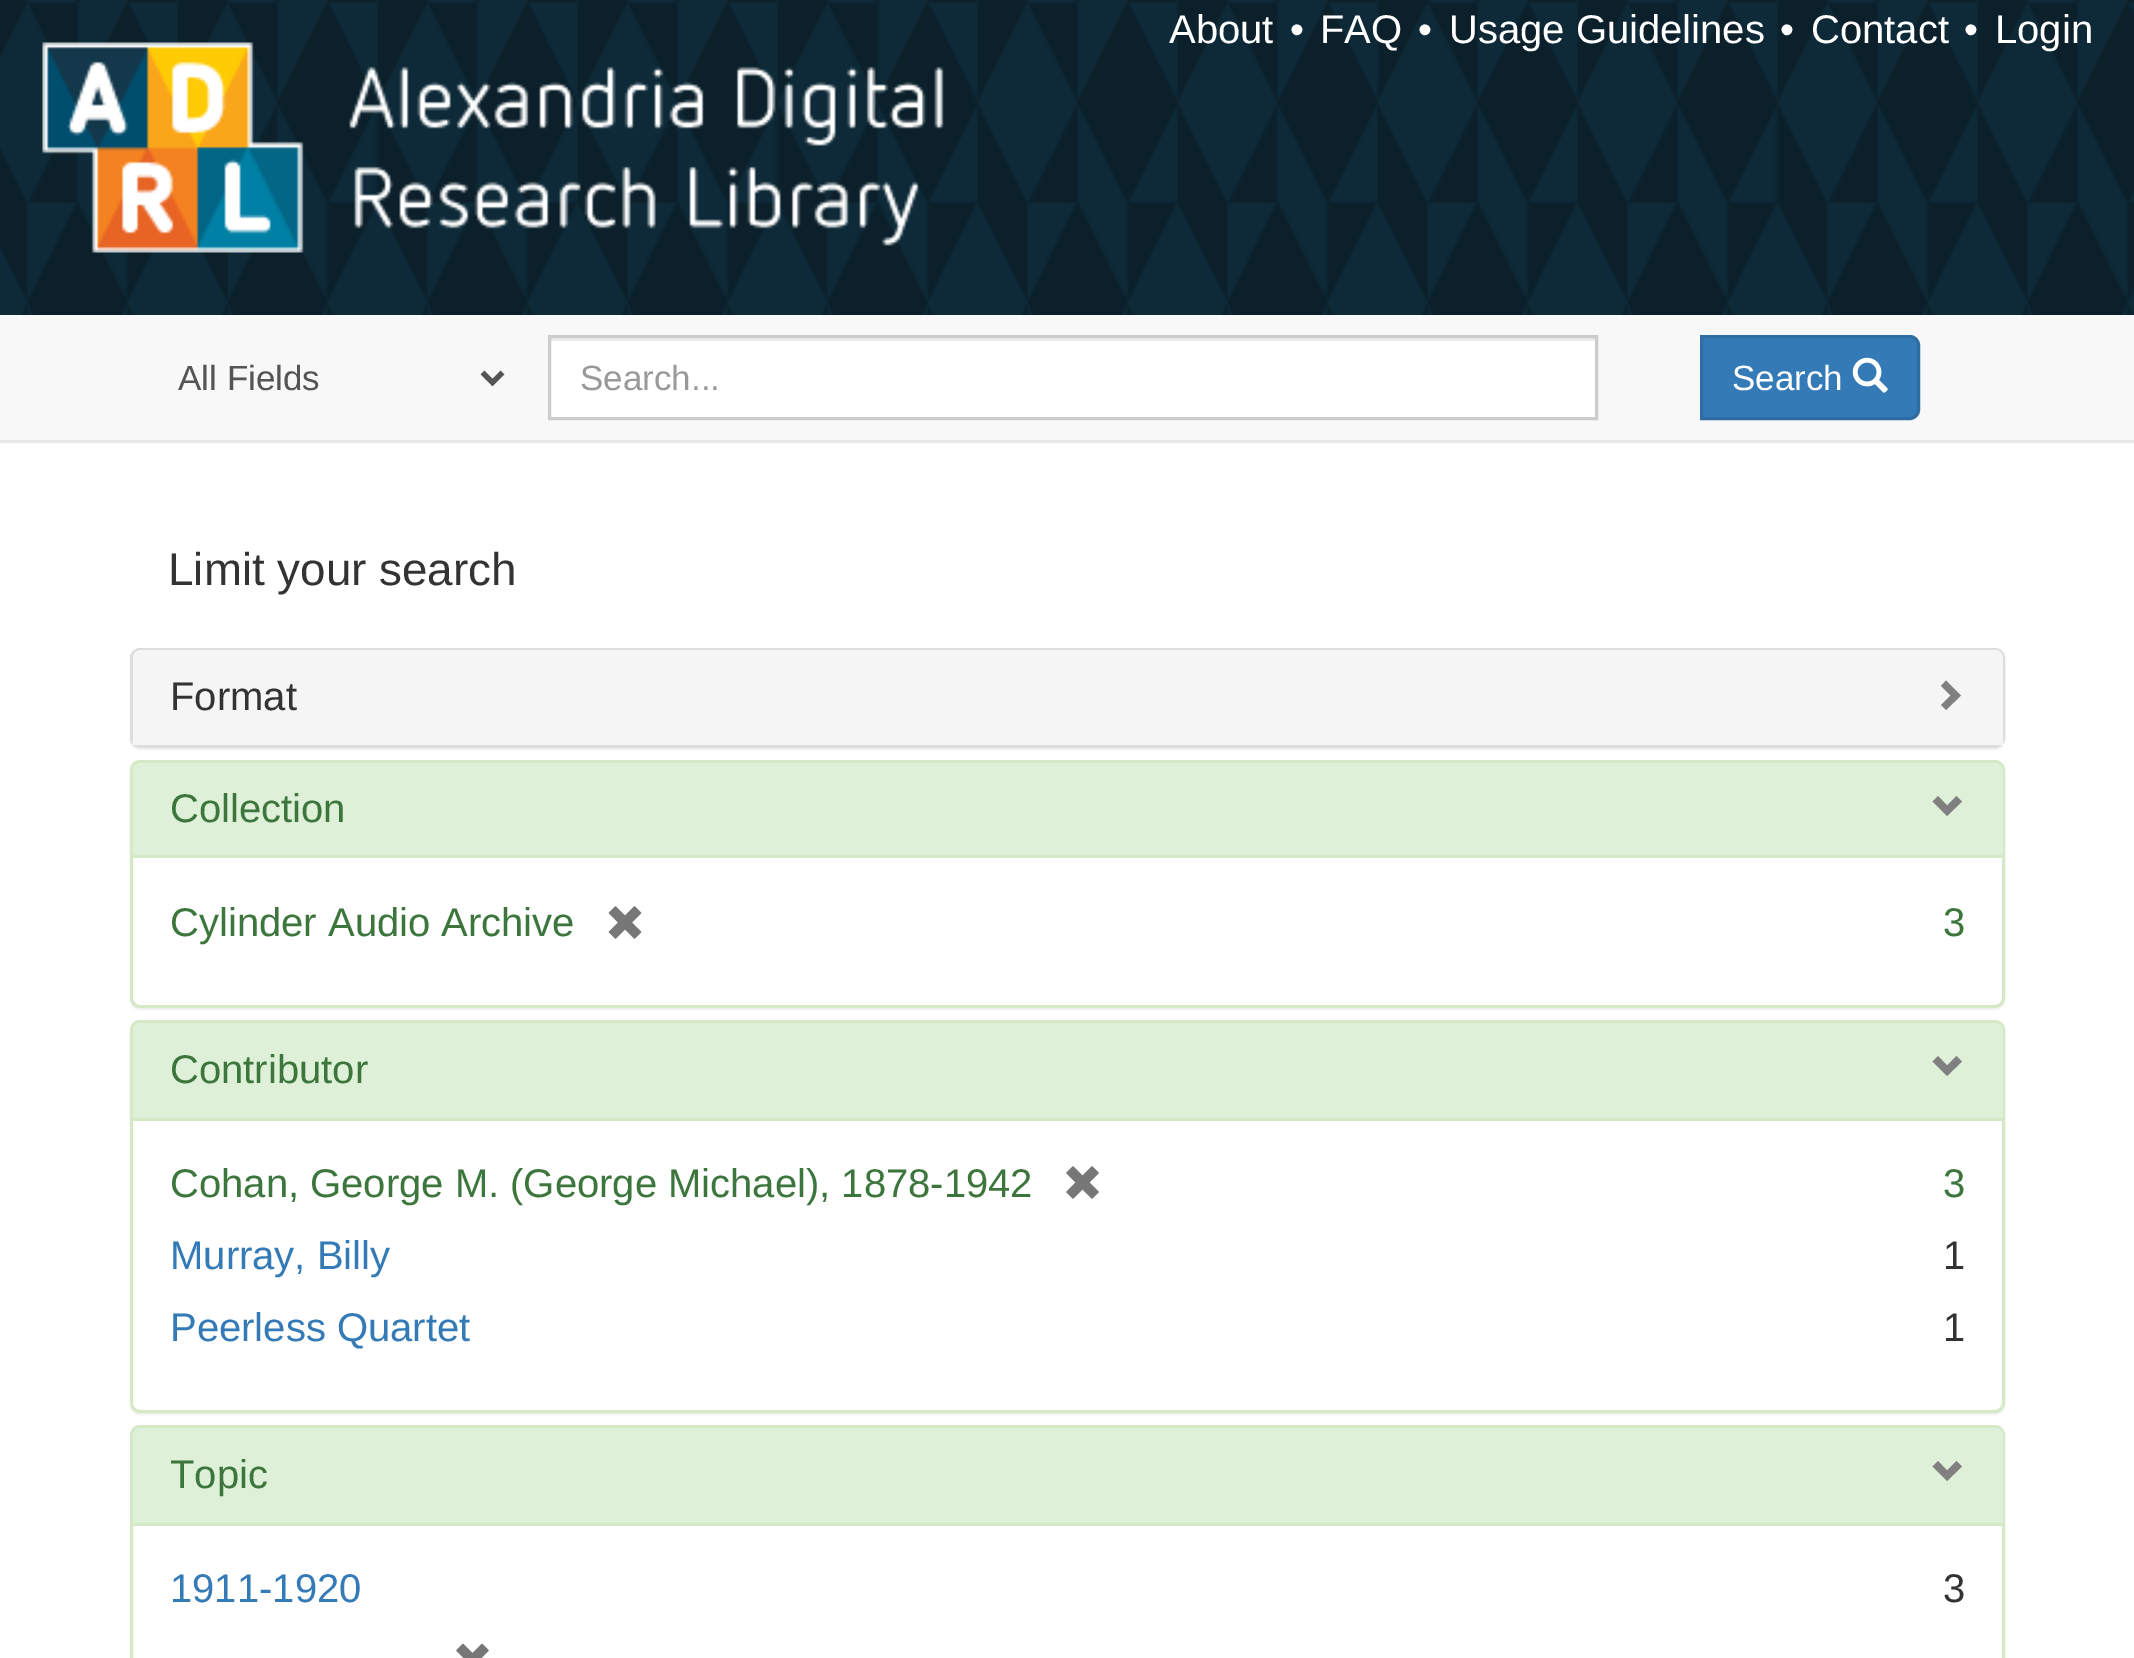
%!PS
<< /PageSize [2134 1658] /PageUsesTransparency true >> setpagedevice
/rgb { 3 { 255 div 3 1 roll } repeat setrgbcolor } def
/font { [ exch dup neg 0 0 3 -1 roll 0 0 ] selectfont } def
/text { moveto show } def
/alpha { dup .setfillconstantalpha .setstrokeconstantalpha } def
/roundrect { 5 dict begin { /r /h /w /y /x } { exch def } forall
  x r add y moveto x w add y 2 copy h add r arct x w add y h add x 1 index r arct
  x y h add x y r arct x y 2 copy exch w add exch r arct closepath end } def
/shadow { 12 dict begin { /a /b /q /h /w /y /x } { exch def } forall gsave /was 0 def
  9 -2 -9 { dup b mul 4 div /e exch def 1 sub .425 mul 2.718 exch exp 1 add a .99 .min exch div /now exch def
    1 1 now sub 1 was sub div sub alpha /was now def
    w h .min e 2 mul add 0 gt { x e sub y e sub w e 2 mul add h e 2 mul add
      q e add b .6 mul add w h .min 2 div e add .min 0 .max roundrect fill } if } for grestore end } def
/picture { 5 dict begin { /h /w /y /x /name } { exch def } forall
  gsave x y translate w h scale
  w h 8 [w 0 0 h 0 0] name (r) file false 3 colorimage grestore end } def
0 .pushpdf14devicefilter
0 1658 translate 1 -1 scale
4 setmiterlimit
255 255 255 rgb
0 0 2134 1658 rectfill
(img_01.rgb) 0 0 2134 315 picture
(img_02.rgb) 42 42 902 211 picture
248 248 248 rgb
0 315 2134 125 rectfill
231 231 231 rgb
0 440 2134 3 rectfill
85 85 85 rgb
5 setlinewidth
482.5 372.5 moveto 10 10 rlineto 10 -10 rlineto stroke
255 255 255 rgb
551 341 1044 76 rectfill
236 236 236 rgb
550 338 1045 3 rectfill
204 204 204 rgb
3 setlinewidth
549.5 336.5 1047 82 rectstroke
51 122 183 rgb
1701.5 336.5 moveto 208.5 0 rlineto 4.5 0 8.5 4 8.5 8.5 rcurveto 0 65 rlineto 0 4.5 -4 8.5 -8.5 8.5 rcurveto -208.5 0 rlineto closepath gsave fill grestore
46 109 164 rgb
stroke
(img_03.rgb) 1852 357 36 36 picture
0 0 0 rgb
130 650 1875 100 10 1 0.05 shadow
221 221 221 rgb
131.5 649.5 1872 97 8.5 roundrect stroke
245 245 245 rgb
141 650 moveto 1854 0 rlineto 4.5 0 8 3.5 8 8 rcurveto 0 87 rlineto -1870 0 rlineto 0 -87 rlineto 0 -4.5 3.5 -8 8 -8 rcurveto closepath fill
128 128 128 rgb
1961 695.5 moveto -15 14.5 rlineto -5 -5 rlineto 9.5 -9.5 rlineto -9.5 -9.5 rlineto 5 -5.5 rlineto closepath fill
0 0 0 rgb
130 763 1875 247 10 1 0.05 shadow
255 255 255 rgb
131.5 761.5 1872 245 8.5 roundrect gsave fill grestore
214 233 198 rgb
stroke
223 240 216 rgb
141 763 moveto 1854 0 rlineto 4.5 0 8 3.5 8 8 rcurveto 0 84 rlineto -1870 0 rlineto 0 -84 rlineto 0 -4.5 3.5 -8 8 -8 rcurveto closepath fill
128 128 128 rgb
1962 801.5 moveto -15 14.5 rlineto -14.5 -14.5 rlineto 5.5 -5.5 rlineto 9 9.5 rlineto 9.5 -9.5 rlineto closepath fill
214 233 198 rgb
133 855 1870 3 rectfill
(img_04.rgb) 608 906 34 33 picture
0 0 0 rgb
130 1023 1875 392 10 1 0.05 shadow
255 255 255 rgb
131.5 1021.5 1872 390 8.5 roundrect gsave fill grestore
214 233 198 rgb
stroke
223 240 216 rgb
141 1023 moveto 1854 0 rlineto 4.5 0 8 3.5 8 8 rcurveto 0 87 rlineto -1870 0 rlineto 0 -87 rlineto 0 -4.5 3.5 -8 8 -8 rcurveto closepath fill
128 128 128 rgb
1962 1061.5 moveto -15 14.5 rlineto -14.5 -14.5 rlineto 5.5 -5.5 rlineto 9 9.5 rlineto 9.5 -9.5 rlineto closepath fill
214 233 198 rgb
133 1118 1870 3 rectfill
(img_05.rgb) 1066 1166 33 33 picture
131.5 1426.5 1872 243 8.5 roundrect stroke
223 240 216 rgb
141 1428 moveto 1854 0 rlineto 4.5 0 8 3.5 8 8 rcurveto 0 87 rlineto -1870 0 rlineto 0 -87 rlineto 0 -4.5 3.5 -8 8 -8 rcurveto closepath fill
128 128 128 rgb
1962 1466.5 moveto -15 14.5 rlineto -14.5 -14.5 rlineto 5.5 -5.5 rlineto 9 9.5 rlineto 9.5 -9.5 rlineto closepath fill
214 233 198 rgb
133 1523 1870 3 rectfill
(img_06.rgb) 456 1643 33 15 picture
/LiberationSans-Regular 40 font
255 255 255 rgb
(About) 1169 43 text
(•) 1290 43 text
(FAQ) 1320 43 text
(•) 1418 43 text
(Usage Guidelines) 1449 43 text
(•) 1780 43 text
(Contact) 1811 43 text
(•) 1964 43 text
(Login) 1995 43 text
/LiberationSans-Regular 35 font
85 85 85 rgb
(All Fields) 178 390 text
153 153 153 rgb
(Search...) 580 390 text
255 255 255 rgb
(Search) 1732 390 text
/LiberationSans-Regular 45.75 font
51 51 51 rgb
(Limit your search) 168 585 text
/LiberationSans-Regular 40 font
(Format) 170 710 text
60 118 61 rgb
(Collection) 170 822 text
(Cylinder Audio Archive) 170 936 text
(3) 1943 936 text
(Contributor) 170 1083 text
(Cohan, George M. \(George Michael\), 1878-1942) 170 1197 text
(3) 1943 1197 text
51 122 183 rgb
(Murray, Billy) 170 1269 text
51 51 51 rgb
(1) 1943 1269 text
51 122 183 rgb
(Peerless Quartet) 170 1341 text
51 51 51 rgb
(1) 1943 1341 text
60 118 61 rgb
(Topic) 170 1488 text
51 122 183 rgb
(1911-1920) 170 1602 text
51 51 51 rgb
(3) 1943 1602 text
.poppdf14devicefilter showpage
